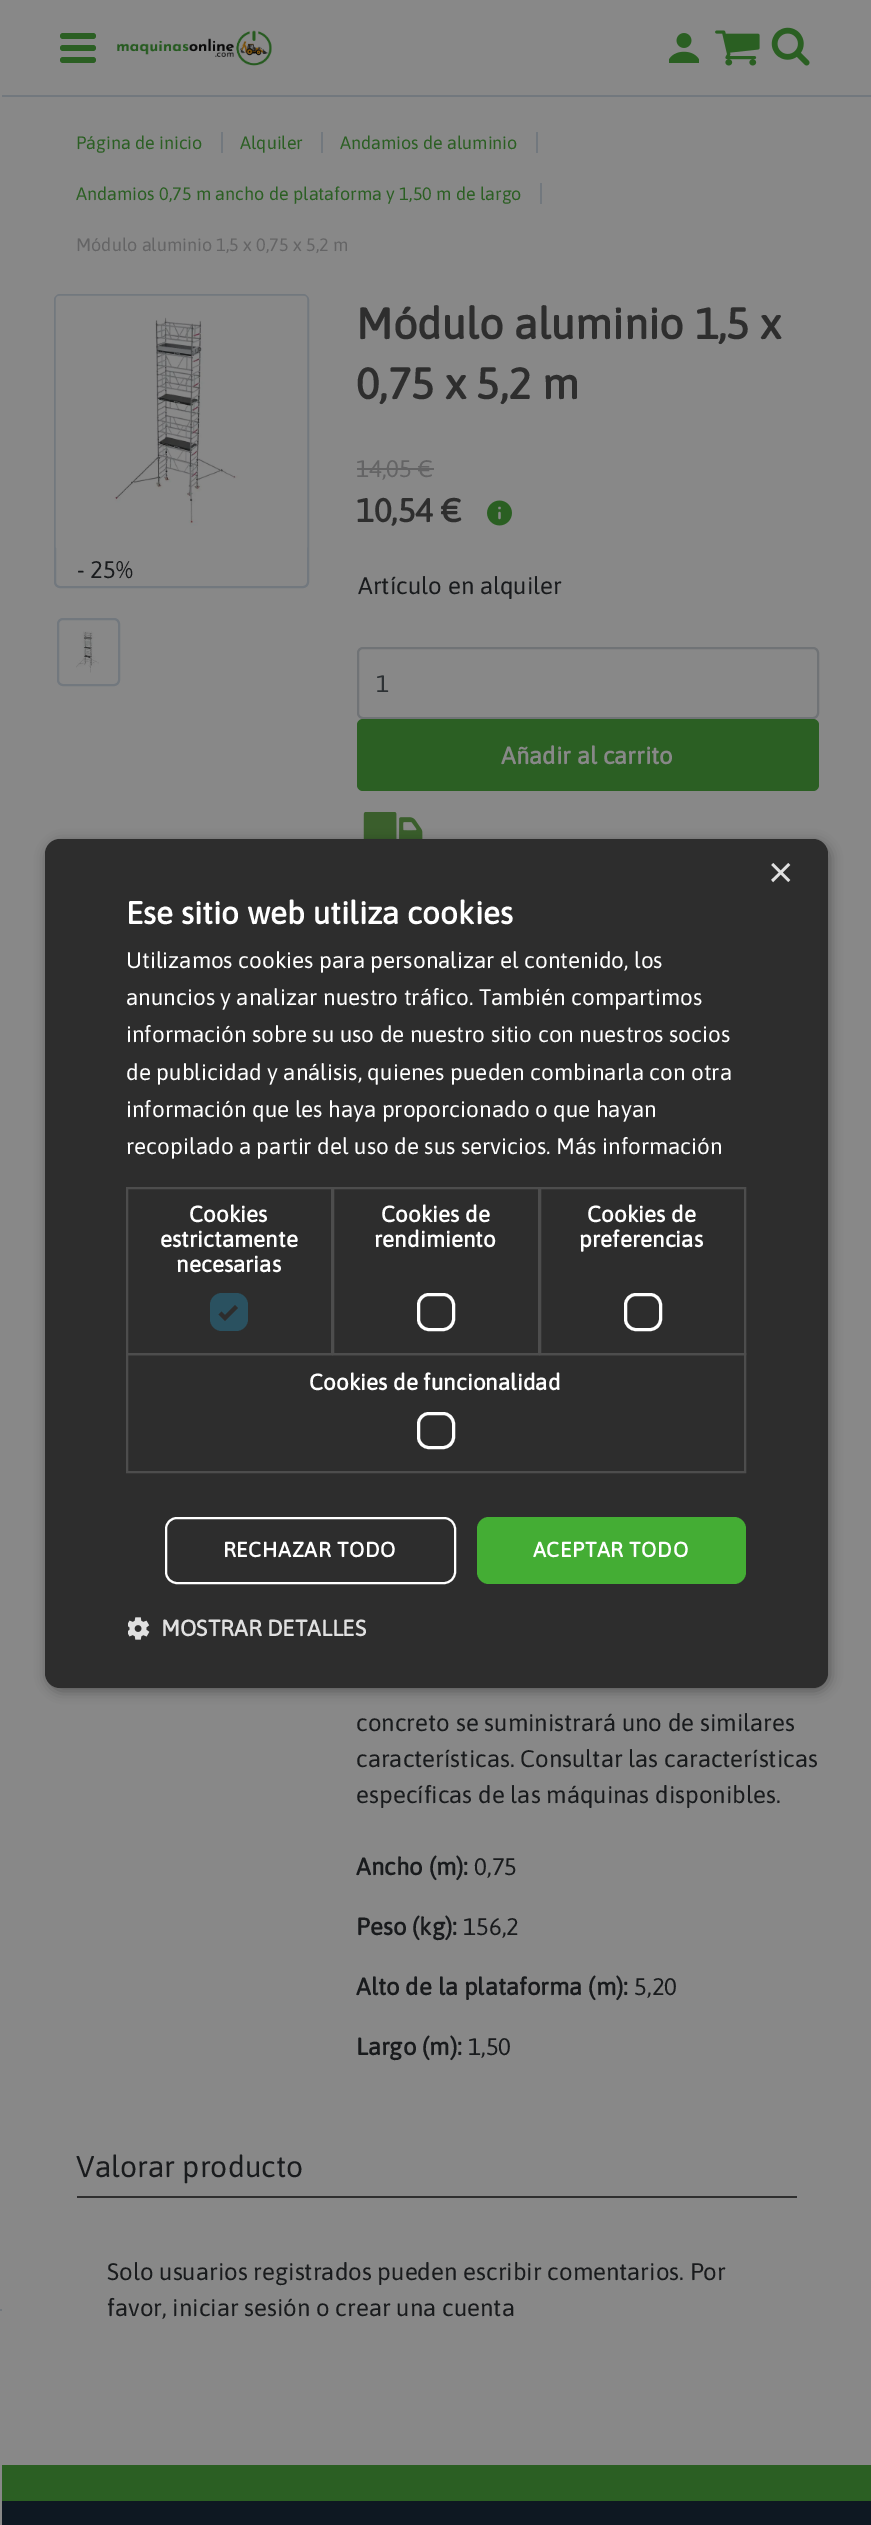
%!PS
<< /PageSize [871 2525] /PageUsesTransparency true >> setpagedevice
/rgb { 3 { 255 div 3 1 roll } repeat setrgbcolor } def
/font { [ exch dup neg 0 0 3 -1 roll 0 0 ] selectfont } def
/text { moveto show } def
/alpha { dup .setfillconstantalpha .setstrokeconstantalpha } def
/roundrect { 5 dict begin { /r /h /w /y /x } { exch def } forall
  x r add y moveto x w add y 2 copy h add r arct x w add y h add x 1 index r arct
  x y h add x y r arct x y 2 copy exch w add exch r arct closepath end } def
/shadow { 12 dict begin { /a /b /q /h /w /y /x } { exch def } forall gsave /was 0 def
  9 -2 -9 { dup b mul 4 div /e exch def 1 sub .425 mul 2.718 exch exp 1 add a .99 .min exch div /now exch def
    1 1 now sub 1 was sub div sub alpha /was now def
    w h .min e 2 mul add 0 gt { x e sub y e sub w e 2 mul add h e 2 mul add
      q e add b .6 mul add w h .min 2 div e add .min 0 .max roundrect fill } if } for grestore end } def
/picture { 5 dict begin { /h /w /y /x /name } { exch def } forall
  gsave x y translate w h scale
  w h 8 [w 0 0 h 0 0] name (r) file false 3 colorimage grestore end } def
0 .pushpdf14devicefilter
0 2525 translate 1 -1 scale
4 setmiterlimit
136 136 136 rgb
0 0 871 2525 rectfill
114 120 126 rgb
0 95 871 2 rectfill
43 95 35 rgb
60 33 36 6 3 roundrect fill
60 45 36 6 3 roundrect fill
60 57 36 6 3 roundrect fill
(img_01.rgb) 117 30 155 36 picture
(img_02.rgb) 669 33 30 30 picture
(img_03.rgb) 715 30 45 36 picture
(img_04.rgb) 771 27 39 39 picture
136 136 136 rgb
0 95 2 2 rectfill
114 120 126 rgb
0 2309 2 2 rectfill
221 132 2 21 rectfill
321 132 2 21 rectfill
536 132 2 21 rectfill
540 183 2 21 rectfill
2 setlinewidth
55 295 253 292 5 roundrect stroke
(img_05.rgb) 55 295 253 253 picture
58 619 61 66 5 roundrect stroke
(img_06.rgb) 76 631 23 42 picture
100 100 101 rgb
357 468 77 2 rectfill
(img_07.rgb) 487 500 25 26 picture
112 115 118 rgb
358 648 460 70 5 roundrect stroke
43 95 35 rgb
357 719 462 72 6 roundrect fill
(img_08.rgb) 363 812 60 27 picture
46 46 46 rgb
77 2196 720 2 rectfill
14 24 34 rgb
2 2501 869 24 rectfill
43 95 35 rgb
2 2465 869 36 rectfill
0 0 0 rgb
47 842 783 849 15 6 0.35 shadow
45 45 45 rgb
45 839 783 849 15 roundrect fill
77 77 77 rgb
127 1188 205 166 rectstroke
42 81 96 rgb
210 1293 38 38 12 roundrect fill
45 45 45 rgb
3.9 setlinewidth
220 1313 moveto 5 5 rlineto 11.5 -11.5 rlineto stroke
77 77 77 rgb
2 setlinewidth
333 1188 206 166 rectstroke
255 255 255 rgb
3 setlinewidth
418.5 1294.5 35 35 10.5 roundrect stroke
77 77 77 rgb
2 setlinewidth
540 1188 205 166 rectstroke
255 255 255 rgb
3 setlinewidth
625.5 1294.5 35 35 10.5 roundrect stroke
77 77 77 rgb
2 setlinewidth
127 1354 618 118 rectstroke
255 255 255 rgb
3 setlinewidth
418.5 1413.5 35 34 10.5 roundrect stroke
2 setlinewidth
166 1518 289 65 11 roundrect stroke
68 173 52 rgb
477 1517 269 67 12 roundrect fill
(img_09.rgb) 128 1617 22 23 picture
/Asap-Regular 18 font
43 95 35 rgb
(Página de inicio) 76 149 text
(Alquiler) 240 149 text
(Andamios de aluminio) 340 149 text
(Andamios 0,75 m ancho de plataforma y 1,50 m de largo) 76 200 text
100 100 101 rgb
(Módulo aluminio 1,5 x 0,75 x 5,2 m) 76 251 text
/Asap-Regular 24 font
25 27 29 rgb
(- 25%) 77 578 text
/Asap-Bold 43.5 font
46 46 46 rgb
(Módulo aluminio 1,5 x) 356 339 text
(0,75 x 5,2 m) 356 399 text
/Asap-Regular 24 font
100 100 101 rgb
(14,05 €) 356 477 text
/Asap-Bold 33 font
46 46 46 rgb
(10,54 €) 356 522 text
/Asap-Regular 24 font
25 27 29 rgb
(Artículo en alquiler) 358 594 text
45 49 52 rgb
(1) 376 692 text
/Asap-Bold 24 font
136 136 136 rgb
(Añadir al carrito) 501 764 text
/Asap-Regular 24 font
25 27 29 rgb
(concreto se suministrará uno de similares) 356 1731 text
(características. Consultar las características) 356 1767 text
(específicas de las máquinas disponibles.) 356 1803 text
/Asap-Bold 24 font
(Ancho \(m\):) 356 1875 text
/Asap-Regular 24 font
(0,75) 474 1875 text
/Asap-Bold 24 font
(Peso \(kg\):) 356 1935 text
/Asap-Regular 24 font
(156,2) 463 1935 text
/Asap-Bold 24 font
(Alto de la plataforma \(m\):) 356 1995 text
/Asap-Regular 24 font
(5,20) 634 1995 text
/Asap-Bold 24 font
(Largo \(m\):) 356 2055 text
/Asap-Regular 24 font
(1,50) 468 2055 text
/Asap-Regular 30 font
(Valorar producto) 76 2177 text
/Asap-Regular 24 font
(Solo usuarios registrados pueden escribir comentarios. Por) 107 2280 text
(favor, iniciar sesión o crear una cuenta) 107 2316 text
/LiberationSans-Regular 43.5 font
224 224 224 rgb
(×) 768 887 text
/Asap-Bold 31.5 font
255 255 255 rgb
(Ese sitio web utiliza cookies) 126 924 text
/Asap-Regular 22.5 font
(Utilizamos cookies para personalizar el contenido, los) 126 968 text
(anuncios y analizar nuestro tráfico. También compartimos) 126 1005 text
(información sobre su uso de nuestro sitio con nuestros socios) 126 1042 text
(de publicidad y análisis, quienes pueden combinarla con otra) 126 1080 text
(información que les haya proporcionado o que hayan) 126 1117 text
(recopilado a partir del uso de sus servicios. Más información) 126 1154 text
/Asap-Bold 22.5 font
(Cookies) 189 1222 text
(estrictamente) 160 1247 text
(necesarias) 176 1272 text
(Cookies de) 381 1222 text
(rendimiento) 374 1247 text
(Cookies de) 587 1222 text
(preferencias) 579 1247 text
(Cookies de funcionalidad) 309 1390 text
/Asap-Bold 21 font
223 1557 moveto 0.6 0 (RECHAZAR TODO) ashow
533 1557 moveto 0.6 0 (ACEPTAR TODO) ashow
/Asap-Bold 22.5 font
224 224 224 rgb
(MOSTRAR DETALLES) 161 1636 text
.poppdf14devicefilter showpage
